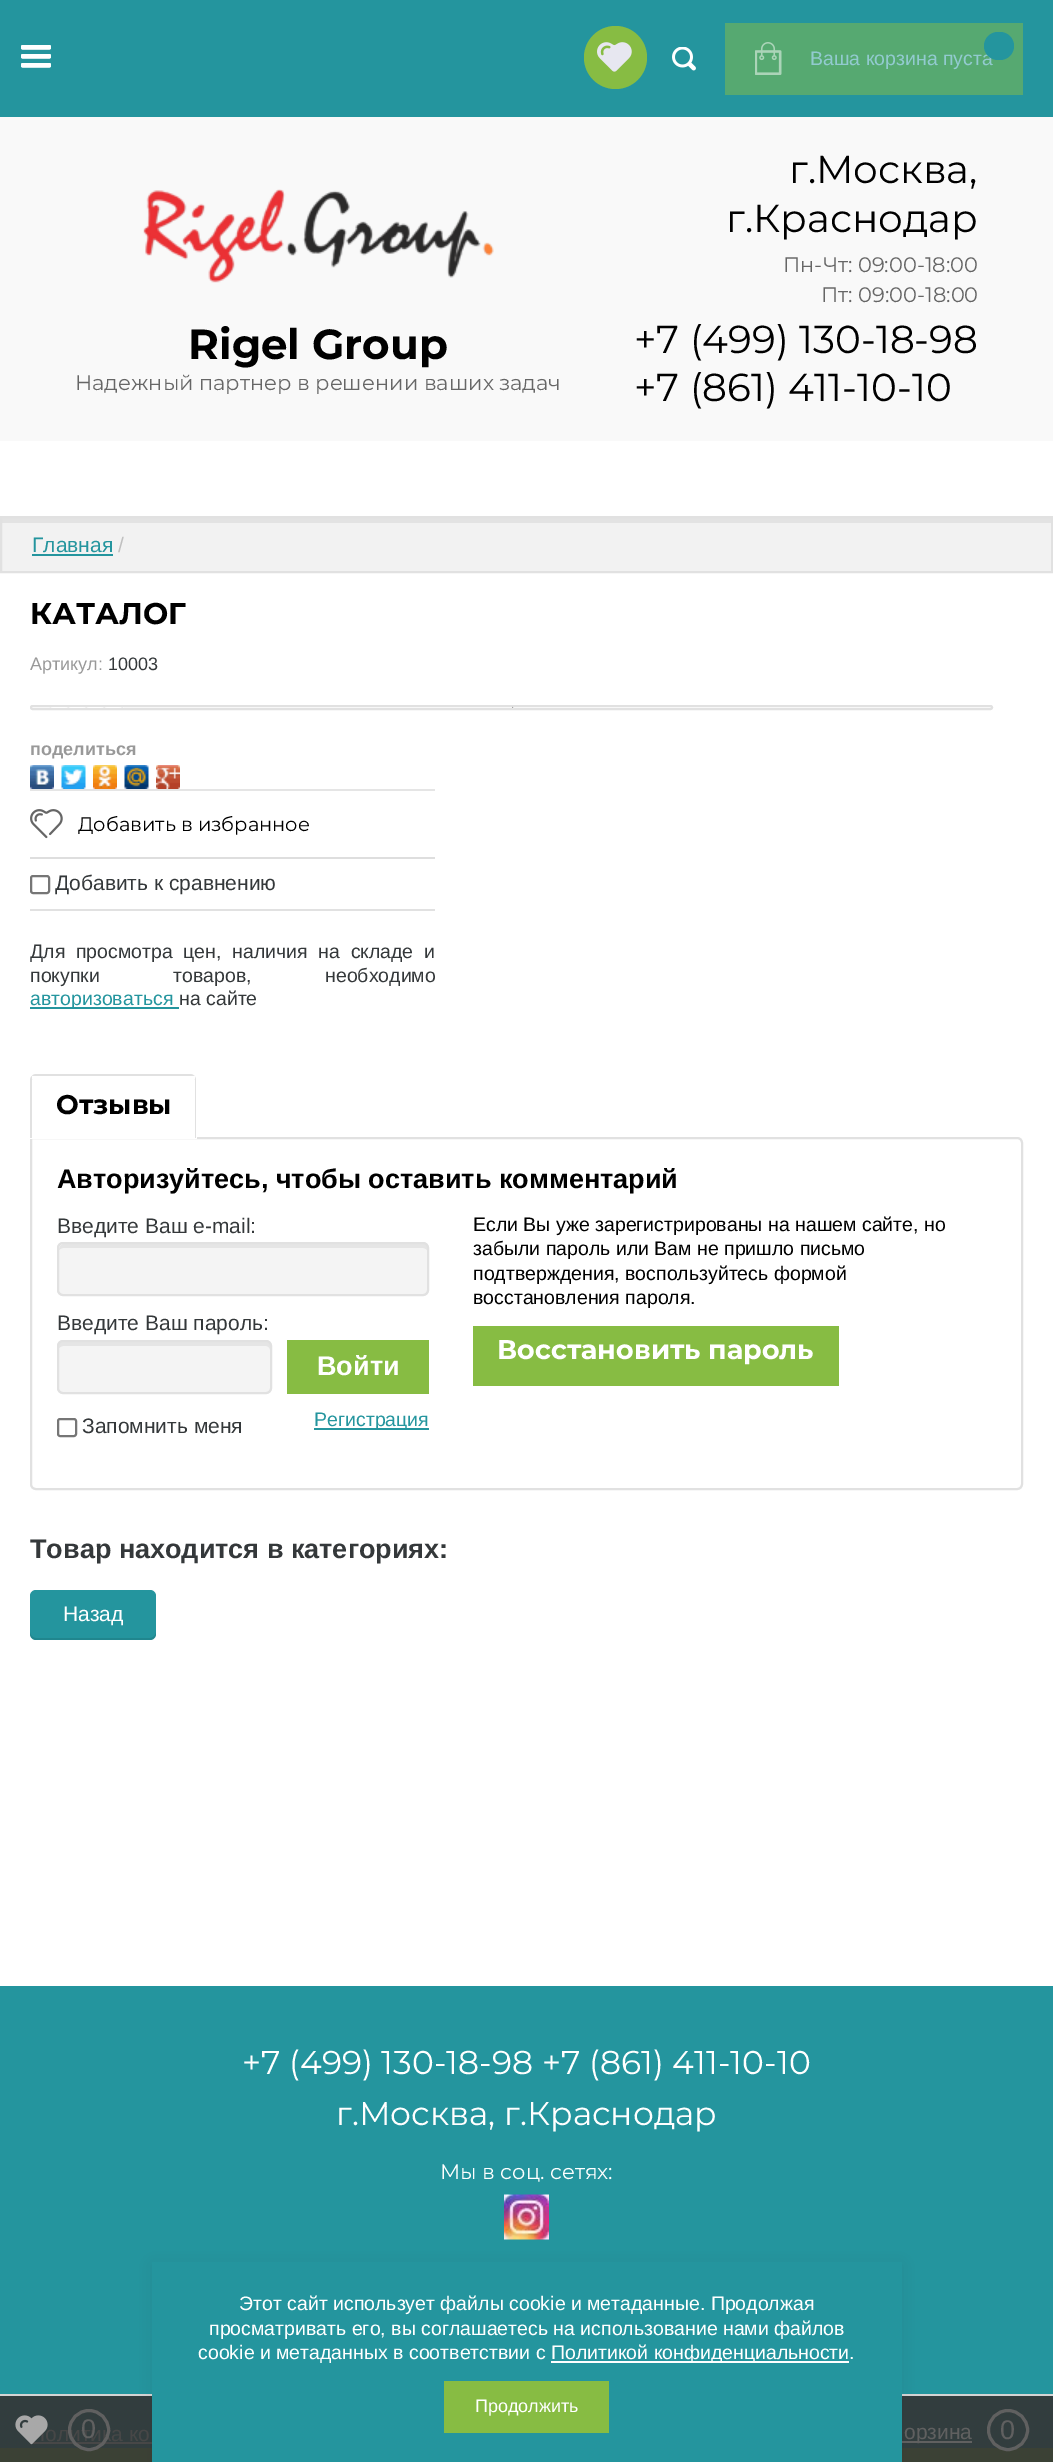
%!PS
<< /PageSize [1053 2462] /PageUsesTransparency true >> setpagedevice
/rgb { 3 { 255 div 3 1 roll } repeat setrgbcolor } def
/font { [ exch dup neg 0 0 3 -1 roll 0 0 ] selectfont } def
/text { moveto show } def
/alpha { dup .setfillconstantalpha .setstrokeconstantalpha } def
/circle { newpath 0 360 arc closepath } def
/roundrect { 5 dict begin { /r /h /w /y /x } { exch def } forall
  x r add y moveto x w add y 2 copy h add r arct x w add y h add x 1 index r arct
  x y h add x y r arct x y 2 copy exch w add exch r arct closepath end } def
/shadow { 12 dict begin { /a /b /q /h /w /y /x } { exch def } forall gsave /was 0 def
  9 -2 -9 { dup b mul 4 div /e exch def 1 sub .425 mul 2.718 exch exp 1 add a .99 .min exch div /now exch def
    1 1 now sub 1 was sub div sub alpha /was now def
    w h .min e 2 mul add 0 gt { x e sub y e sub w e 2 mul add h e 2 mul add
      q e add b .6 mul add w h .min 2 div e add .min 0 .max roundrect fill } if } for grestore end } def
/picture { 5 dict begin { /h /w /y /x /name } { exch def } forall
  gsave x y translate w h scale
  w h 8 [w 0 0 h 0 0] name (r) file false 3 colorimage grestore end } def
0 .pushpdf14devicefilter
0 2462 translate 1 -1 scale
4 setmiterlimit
255 255 255 rgb
0 0 1053 2462 rectfill
249 249 249 rgb
0 117 1053 324 rectfill
36 149 158 rgb
0 0 1053 117 rectfill
(img_02.rgb) 21 45 30 23 picture
(img_01.rgb) 21 45 30 23 picture
135 188 67 rgb
615.5 57.5 31.5 circle fill
(img_03.rgb) 597 42 35 30 picture
(img_04.rgb) 672 47 24 24 picture
86 169 113 rgb
725 23 298 72 rectfill
(img_05.rgb) 755 42 27 33 picture
(img_06.rgb) 143 189 351 94 picture
242 242 242 rgb
2 523 1049 48 rectfill
227 227 227 rgb
2 518 1050 5 rectfill
225 225 225 rgb
2 setlinewidth
1 517 1051 55 rectstroke
36 149 158 rgb
32 554 81 2 rectfill
225 225 225 rgb
31 706 961 3 1.5 roundrect stroke
(img_07.rgb) 49 707 75 1 picture
230 230 230 rgb
512 707 2 2 rectfill
(img_08.rgb) 511 706 2 2 picture
(img_09.rgb) 30 765 24 24 picture
(img_10.rgb) 61 765 25 24 picture
(img_11.rgb) 93 765 24 24 picture
(img_12.rgb) 124 765 25 24 picture
(img_13.rgb) 156 765 24 24 picture
229 229 229 rgb
30 789 405 2 rectfill
(img_14.rgb) 30 809 33 30 picture
222 222 222 rgb
30 857 405 2 rectfill
118 118 118 rgb
31 876 18 17 2 roundrect stroke
225 225 225 rgb
30 909 405 2 rectfill
36 149 158 rgb
30 1007 149 2 rectfill
225 225 225 rgb
31 1138 moveto 986 0 rlineto 3 0 5 2 5 5 rcurveto 0 341 rlineto 0 3 -2 5 -5 5 rcurveto -981 0 rlineto -3 0 -5 -2 -5 -5 rcurveto closepath stroke
255 255 255 rgb
36 1074 moveto 155 0 rlineto 3.5 0 6 2.5 6 6 rcurveto 0 59 rlineto -167 0 rlineto 0 -59 rlineto 0 -3.5 2.5 -6 6 -6 rcurveto closepath fill
225 225 225 rgb
36 1074 moveto 154 0 rlineto 4 0 6 3 6 6 rcurveto 0 58 rlineto -166 0 rlineto 0 -58 rlineto 0 -3 3 -6 6 -6 rcurveto closepath 36 1076 moveto 154 0 rlineto 3 0 5 2 5 4 rcurveto 0 58 rlineto -163 0 rlineto 0 -58 rlineto 0 -2 2 -4 4 -4 rcurveto closepath eofill
255 255 255 rgb
32 1076 163 3 rectfill
244 244 244 rgb
57 1242 372 54 6 roundrect fill
229 229 229 rgb
63 1248 moveto 360 0 rlineto 2 0 5 2 5 4 rcurveto 0 -3 0 -7 -4 -8 rcurveto -360 0 rlineto -3 0 -5 3 -5 6 rcurveto 1 -1 3 -2 4 -2 rcurveto closepath fill
225 225 225 rgb
58 1243 370 52 5 roundrect stroke
244 244 244 rgb
57 1340 215 54 6 roundrect fill
229 229 229 rgb
63 1346 moveto 203 0 rlineto 2 0 4 2 4 4 rcurveto 0 -4 rlineto 0 -3 -2 -5 -5 -5 rcurveto -201 0 rlineto -3 0 -5 2 -5 5 rcurveto 0 2 rlineto 1 -1 3 -2 4 -2 rcurveto closepath fill
225 225 225 rgb
58 1341 213 52 5 roundrect stroke
135 188 67 rgb
287 1340 142 54 rectfill
118 118 118 rgb
58 1419 18 17 2 roundrect stroke
36 149 158 rgb
314 1428 115 2 rectfill
135 188 67 rgb
473 1326 366 60 rectfill
36 149 158 rgb
30 1590 126 50 6 roundrect fill
0.1 alpha
0 0 0 rgb
30 1632 moveto 0 2 rlineto 0 3 3 6 6 6 rcurveto 114 0 rlineto 3 0 6 -3 6 -6 rcurveto 0 -2 rlineto 0 3 -3 6 -6 6 rcurveto -114 0 rlineto -3 0 -6 -3 -6 -6 rcurveto closepath fill
1 alpha
212 212 212 rgb
0 2394 1053 2 rectfill
50 61 62 rgb
0 2396 1053 52 rectfill
96 96 96 rgb
902 2441 70 2 rectfill
59 65 53 rgb
0 2448 1053 14 rectfill
96 96 96 rgb
3 setlinewidth
1008 2430 19.5 circle stroke
36 149 158 rgb
0 1986 1053 408 rectfill
(img_16.rgb) 504 2194 45 46 picture
71 71 71 rgb
30 2442 122 2 rectfill
0 0 0 rgb
152 2264 750 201 0 7.5 0.06 shadow
36 149 158 rgb
152 2262 750 200 rectfill
255 255 255 rgb
551 2361 298 2 rectfill
135 188 67 rgb
444 2381 165 52 rectfill
/LiberationSans-Regular 19.5 font
146 202 207 rgb
(Ваша корзина пуста) 810 65 text
36 149 158 rgb
984 32 30 28 14 roundrect fill
/Montserrat-Bold 42 font
0 0 0 rgb
(Rigel Group) 188 359 text
/Montserrat-Regular 21 font
102 102 102 rgb
(Надежный партнер в решении ваших задач) 75 390 text
/Montserrat-Regular 39 font
0 0 0 rgb
(г.Москва,) 789 183 text
(г.Краснодар) 726 232 text
/Montserrat-Regular 21 font
102 102 102 rgb
(Пн-Чт: 09:00-18:00) 783 272 text
(Пт: 09:00-18:00) 821 302 text
/Montserrat-Regular 39 font
0 0 0 rgb
(+7 \(499\) 130-18-98) 634 353 text
(+7 \(861\) 411-10-10) 634 401 text
/LiberationSans-Regular 21 font
36 149 158 rgb
(Главная) 32 552 text
192 192 192 rgb
(/) 118 552 text
/Montserrat-Bold 30 font
0 0 0 rgb
(КАТАЛОГ) 30 624 text
/LiberationSans-Regular 18 font
153 153 153 rgb
(Артикул:) 30 670 text
52 56 58 rgb
(10003) 108 670 text
/LiberationSans-Bold 18 font
153 153 153 rgb
(поделиться) 30 755 text
/Montserrat-Regular 19.5 font
0 0 0 rgb
(Добавить в избранное) 78 831 text
/LiberationSans-Regular 21 font
52 56 58 rgb
(Добавить к сравнению) 55 890 text
/LiberationSans-Regular 19.5 font
30 958 moveto 5.25 0 32 (Для просмотра цен, наличия на складе и) widthshow
30 982 moveto 68 0 32 (покупки товаров, необходимо) widthshow
36 149 158 rgb
(авторизоваться) 30 1005 text
52 56 58 rgb
(на сайте) 179 1005 text
/Montserrat-Bold 27 font
0 0 0 rgb
(Отзывы) 56 1114 text
/LiberationSans-Bold 27 font
(Авторизуйтесь, чтобы оставить комментарий) 57 1188 text
/LiberationSans-Regular 21 font
52 56 58 rgb
(Введите Ваш e-mail:) 57 1233 text
(Введите Ваш пароль:) 57 1330 text
/LiberationSans-Bold 27 font
255 255 255 rgb
(Войти) 317 1375 text
/LiberationSans-Regular 21 font
52 56 58 rgb
(Запомнить меня) 82 1433 text
/LiberationSans-Regular 19.5 font
36 149 158 rgb
(Регистрация) 314 1426 text
0 0 0 rgb
(Если Вы уже зарегистрированы на нашем сайте, но) 473 1231 text
(забыли пароль или Вам не пришло письмо) 473 1255 text
(подтверждения, воспользуйтесь формой) 473 1280 text
(восстановления пароля.) 473 1304 text
/Montserrat-Bold 27 font
255 255 255 rgb
(Восстановить пароль) 497 1359 text
/LiberationSans-Bold 27 font
52 56 58 rgb
(Товар находится в категориях:) 30 1558 text
/LiberationSans-Regular 21 font
255 255 255 rgb
(Назад) 63 1621 text
96 96 96 rgb
(орзина) 904 2439 text
/LiberationSans-Regular 27 font
(0) 1000 2439 text
/Montserrat-Regular 33 font
255 255 255 rgb
(+7 \(499\) 130-18-98 +7 \(861\) 411-10-10) 242 2074 text
(г.Москва, г.Краснодар) 336 2125 text
/Montserrat-Regular 21 font
(Мы в соц. сетях:) 440 2179 text
/LiberationSans-Regular 21 font
71 71 71 rgb
(олитика ко) 45 2441 text
(img_15.rgb) 15 2415 33 30 picture
96 96 96 rgb
89 2430 19.5 circle stroke
/LiberationSans-Regular 27 font
(0) 81 2438 text
/LiberationSans-Regular 19.5 font
255 255 255 rgb
(Этот сайт использует файлы cookie и метаданные. Продолжая) 239 2310 text
(просматривать его, вы соглашаетесь на использование нами файлов) 209 2335 text
(cookie и метаданных в соответствии с) 198 2359 text
(Политикой конфиденциальности.) 551 2359 text
/LiberationSans-Regular 18 font
(Продолжить) 475 2412 text
.poppdf14devicefilter showpage
